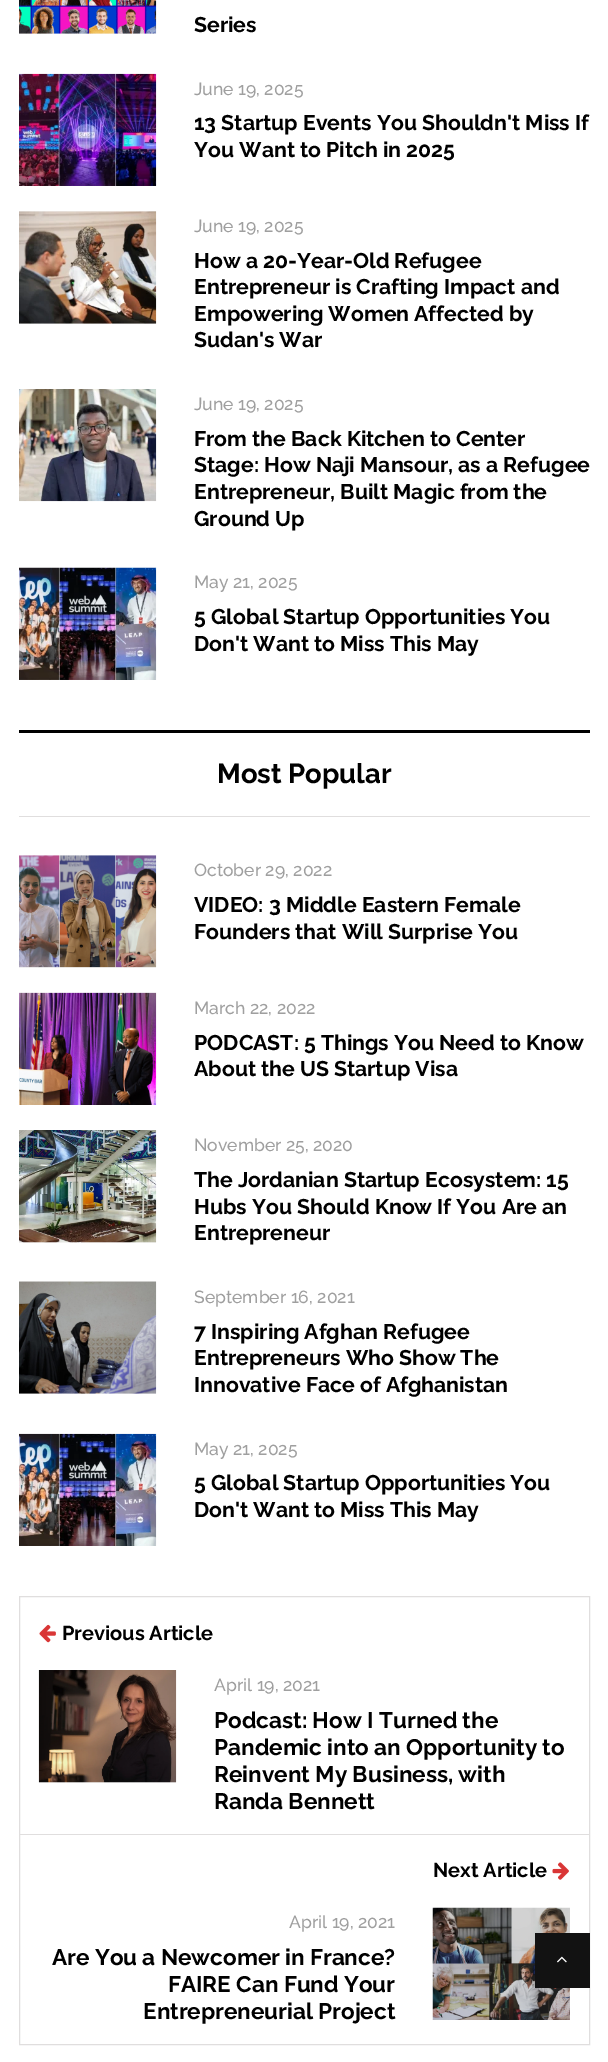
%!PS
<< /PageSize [608 2062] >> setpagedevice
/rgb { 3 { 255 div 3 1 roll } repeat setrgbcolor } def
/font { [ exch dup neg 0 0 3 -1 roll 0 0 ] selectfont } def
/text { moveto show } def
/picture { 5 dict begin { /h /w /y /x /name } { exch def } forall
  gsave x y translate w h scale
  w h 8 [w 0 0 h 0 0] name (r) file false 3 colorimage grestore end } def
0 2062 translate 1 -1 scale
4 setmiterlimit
255 255 255 rgb
0 0 608 2062 rectfill
245 245 245 rgb
19 33 137 1 rectfill
(img_01.rgb) 19 0 138 34 picture
(img_02.rgb) 19 73 138 113 picture
19 211 137 113 rectfill
(img_03.rgb) 19 211 138 113 picture
(img_04.rgb) 19 389 138 113 picture
(img_05.rgb) 19 567 138 113 picture
0 0 0 rgb
19 730 571 3 rectfill
224 222 222 rgb
19 816 571 1 rectfill
245 245 245 rgb
19 967 137 1 rectfill
(img_06.rgb) 19 855 138 113 picture
(img_07.rgb) 19 992 138 113 picture
19 1242 137 1 rectfill
(img_08.rgb) 19 1130 138 113 picture
19 1281 137 113 rectfill
(img_09.rgb) 19 1281 138 113 picture
(img_10.rgb) 19 1433 138 113 picture
224 222 222 rgb
19.5 1596.5 570 448 rectstroke
20 1834 569 1 rectfill
(img_11.rgb) 39 1624 17 19 picture
245 245 245 rgb
39 1782 137 1 rectfill
(img_12.rgb) 38 1670 139 113 picture
(img_13.rgb) 552 1862 17 18 picture
(img_14.rgb) 432 1907 138 113 picture
18 18 18 rgb
535 1933 55 55 rectfill
(img_15.rgb) 557 1956 10 7 picture
/Raleway-Bold 21.25 font
0 0 0 rgb
(Series) 194 32 text
/Raleway-Medium 17.5 font
159 159 159 rgb
(June 19, 2025) 194 95 text
/Raleway-Bold 21.25 font
0 0 0 rgb
(13 Startup Events You Shouldn't Miss If) 194 130 text
(You Want to Pitch in 2025) 194 157 text
/Raleway-Medium 17.5 font
159 159 159 rgb
(June 19, 2025) 194 232 text
/Raleway-Bold 21.25 font
0 0 0 rgb
(How a 20-Year-Old Refugee) 194 268 text
(Entrepreneur is Crafting Impact and) 194 294 text
(Empowering Women Affected by) 194 321 text
(Sudan's War) 194 347 text
/Raleway-Medium 17.5 font
159 159 159 rgb
(June 19, 2025) 194 410 text
/Raleway-Bold 21.25 font
0 0 0 rgb
(From the Back Kitchen to Center) 194 446 text
(Stage: How Naji Mansour, as a Refugee) 194 472 text
(Entrepreneur, Built Magic from the) 194 499 text
(Ground Up) 194 526 text
/Raleway-Medium 17.5 font
159 159 159 rgb
(May 21, 2025) 194 588 text
/Raleway-Bold 21.25 font
0 0 0 rgb
(5 Global Startup Opportunities You) 194 624 text
(Don't Want to Miss This May) 194 651 text
/Raleway-Bold 27.5 font
(Most Popular) 217 783 text
/Raleway-Medium 17.5 font
159 159 159 rgb
(October 29, 2022) 194 876 text
/Raleway-Bold 21.25 font
0 0 0 rgb
(VIDEO: 3 Middle Eastern Female) 194 912 text
(Founders that Will Surprise You) 194 939 text
/Raleway-Medium 17.5 font
159 159 159 rgb
(March 22, 2022) 194 1014 text
/Raleway-Bold 21.25 font
0 0 0 rgb
(PODCAST: 5 Things You Need to Know) 194 1050 text
(About the US Startup Visa) 194 1076 text
/Raleway-Medium 17.5 font
159 159 159 rgb
(November 25, 2020) 194 1151 text
/Raleway-Bold 21.25 font
0 0 0 rgb
(The Jordanian Startup Ecosystem: 15) 194 1187 text
(Hubs You Should Know If You Are an) 194 1214 text
(Entrepreneur) 194 1240 text
/Raleway-Medium 17.5 font
159 159 159 rgb
(September 16, 2021) 194 1303 text
/Raleway-Bold 21.25 font
0 0 0 rgb
(7 Inspiring Afghan Refugee) 194 1339 text
(Entrepreneurs Who Show The) 194 1365 text
(Innovative Face of Afghanistan) 194 1392 text
/Raleway-Medium 17.5 font
159 159 159 rgb
(May 21, 2025) 194 1455 text
/Raleway-Bold 21.25 font
0 0 0 rgb
(5 Global Startup Opportunities You) 194 1490 text
(Don't Want to Miss This May) 194 1517 text
/Raleway-Bold 20 font
(Previous Article) 62 1640 text
/Raleway-Medium 17.5 font
159 159 159 rgb
(April 19, 2021) 214 1691 text
/Raleway-Bold 22.5 font
0 0 0 rgb
(Podcast: How I Turned the) 214 1728 text
(Pandemic into an Opportunity to) 214 1755 text
(Reinvent My Business, with) 214 1782 text
(Randa Bennett) 214 1809 text
/Raleway-Bold 20 font
(Next Article) 433 1877 text
/Raleway-Medium 17.5 font
159 159 159 rgb
(April 19, 2021) 289 1928 text
/Raleway-Bold 22.5 font
0 0 0 rgb
(Are You a Newcomer in France?) 52 1965 text
(FAIRE Can Fund Your) 168 1992 text
(Entrepreneurial Project) 143 2019 text
showpage
